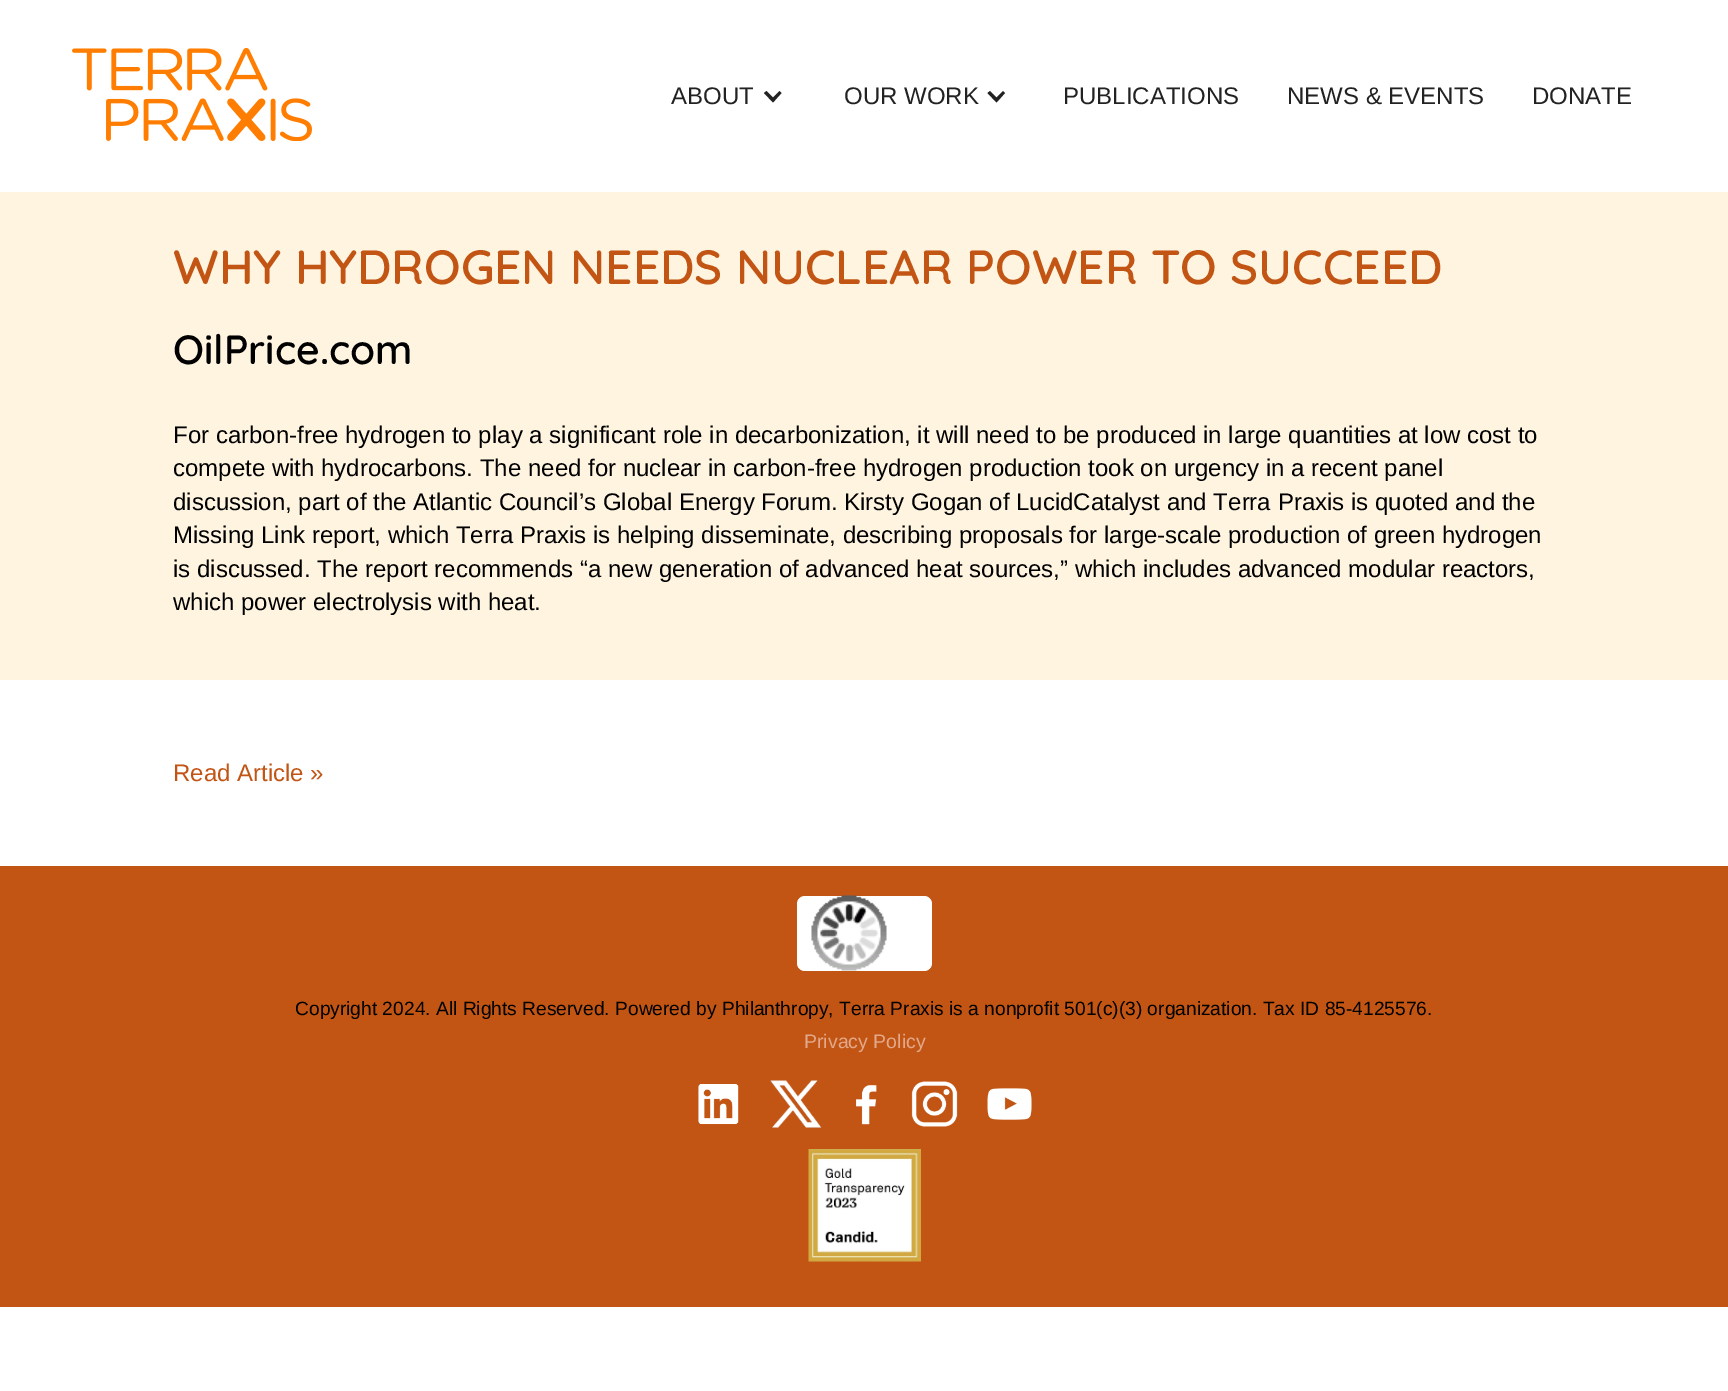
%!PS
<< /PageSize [1728 1391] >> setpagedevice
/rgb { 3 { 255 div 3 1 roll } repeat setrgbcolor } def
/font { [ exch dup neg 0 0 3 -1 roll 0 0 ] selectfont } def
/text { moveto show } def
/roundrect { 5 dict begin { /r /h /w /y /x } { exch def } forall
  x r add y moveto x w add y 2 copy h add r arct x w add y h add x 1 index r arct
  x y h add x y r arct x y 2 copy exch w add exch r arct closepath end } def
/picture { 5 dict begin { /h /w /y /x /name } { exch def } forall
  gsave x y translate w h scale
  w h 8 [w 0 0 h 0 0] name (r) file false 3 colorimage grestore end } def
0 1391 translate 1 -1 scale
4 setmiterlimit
255 255 255 rgb
0 0 1728 1391 rectfill
(img_01.rgb) 72 48 240 93 picture
34 34 34 rgb
779.5 91 moveto -6.5 6.5 rlineto -6.5 -6.5 rlineto -2.5 2 rlineto 9 9.5 rlineto 8.5 -9.5 rlineto closepath fill
1003 91 moveto -6.5 6.5 rlineto -6.5 -6.5 rlineto -2.5 2 rlineto 9 9.5 rlineto 8.5 -9.5 rlineto closepath fill
254 244 224 rgb
0 192 1728 488 rectfill
195 85 20 rgb
0 866 1728 441 rectfill
255 255 255 rgb
797 896 135 75 8 roundrect fill
(img_02.rgb) 811 895 76 76 picture
(img_03.rgb) 698 1084 41 41 picture
(img_04.rgb) 770 1080 52 48 picture
(img_05.rgb) 856 1085 21 40 picture
(img_06.rgb) 911 1081 47 46 picture
(img_07.rgb) 987 1088 45 32 picture
(img_08.rgb) 808 1149 113 113 picture
/LiberationSans-Regular 24 font
34 34 34 rgb
(ABOUT) 671 104 text
(OUR WORK) 844 104 text
(PUBLICATIONS) 1063 104 text
(NEWS & EVENTS) 1287 104 text
(DONATE) 1532 104 text
/Quicksand-SemiBold 48 font
195 85 20 rgb
(WHY HYDROGEN NEEDS NUCLEAR POWER TO SUCCEED) 173 284 text
/Quicksand-SemiBold 40.75 font
0 0 0 rgb
(OilPrice.com) 173 364 text
/LiberationSans-Regular 24 font
(For carbon-free hydrogen to play a significant role in decarbonization, it will need to be produced in large quantities at low cost to) 173 443 text
(compete with hydrocarbons. The need for nuclear in carbon-free hydrogen production took on urgency in a recent panel) 173 476 text
(discussion, part of the Atlantic Council’s Global Energy Forum. Kirsty Gogan of LucidCatalyst and Terra Praxis is quoted and the) 173 510 text
(Missing Link report, which Terra Praxis is helping disseminate, describing proposals for large-scale production of green hydrogen) 173 543 text
(is discussed. The report recommends “a new generation of advanced heat sources,” which includes advanced modular reactors,) 173 577 text
(which power electrolysis with heat.) 173 610 text
195 85 20 rgb
(Read Article ») 173 781 text
/LiberationSans-Regular 19.2 font
0 0 0 rgb
(Copyright 2024. All Rights Reserved. Powered by Philanthropy, Terra Praxis is a nonprofit 501\(c\)\(3\) organization. Tax ID 85-4125576.) 295 1015 text
/LiberationSans-Regular 19.5 font
225 169 137 rgb
(Privacy Policy) 804 1048 text
showpage
